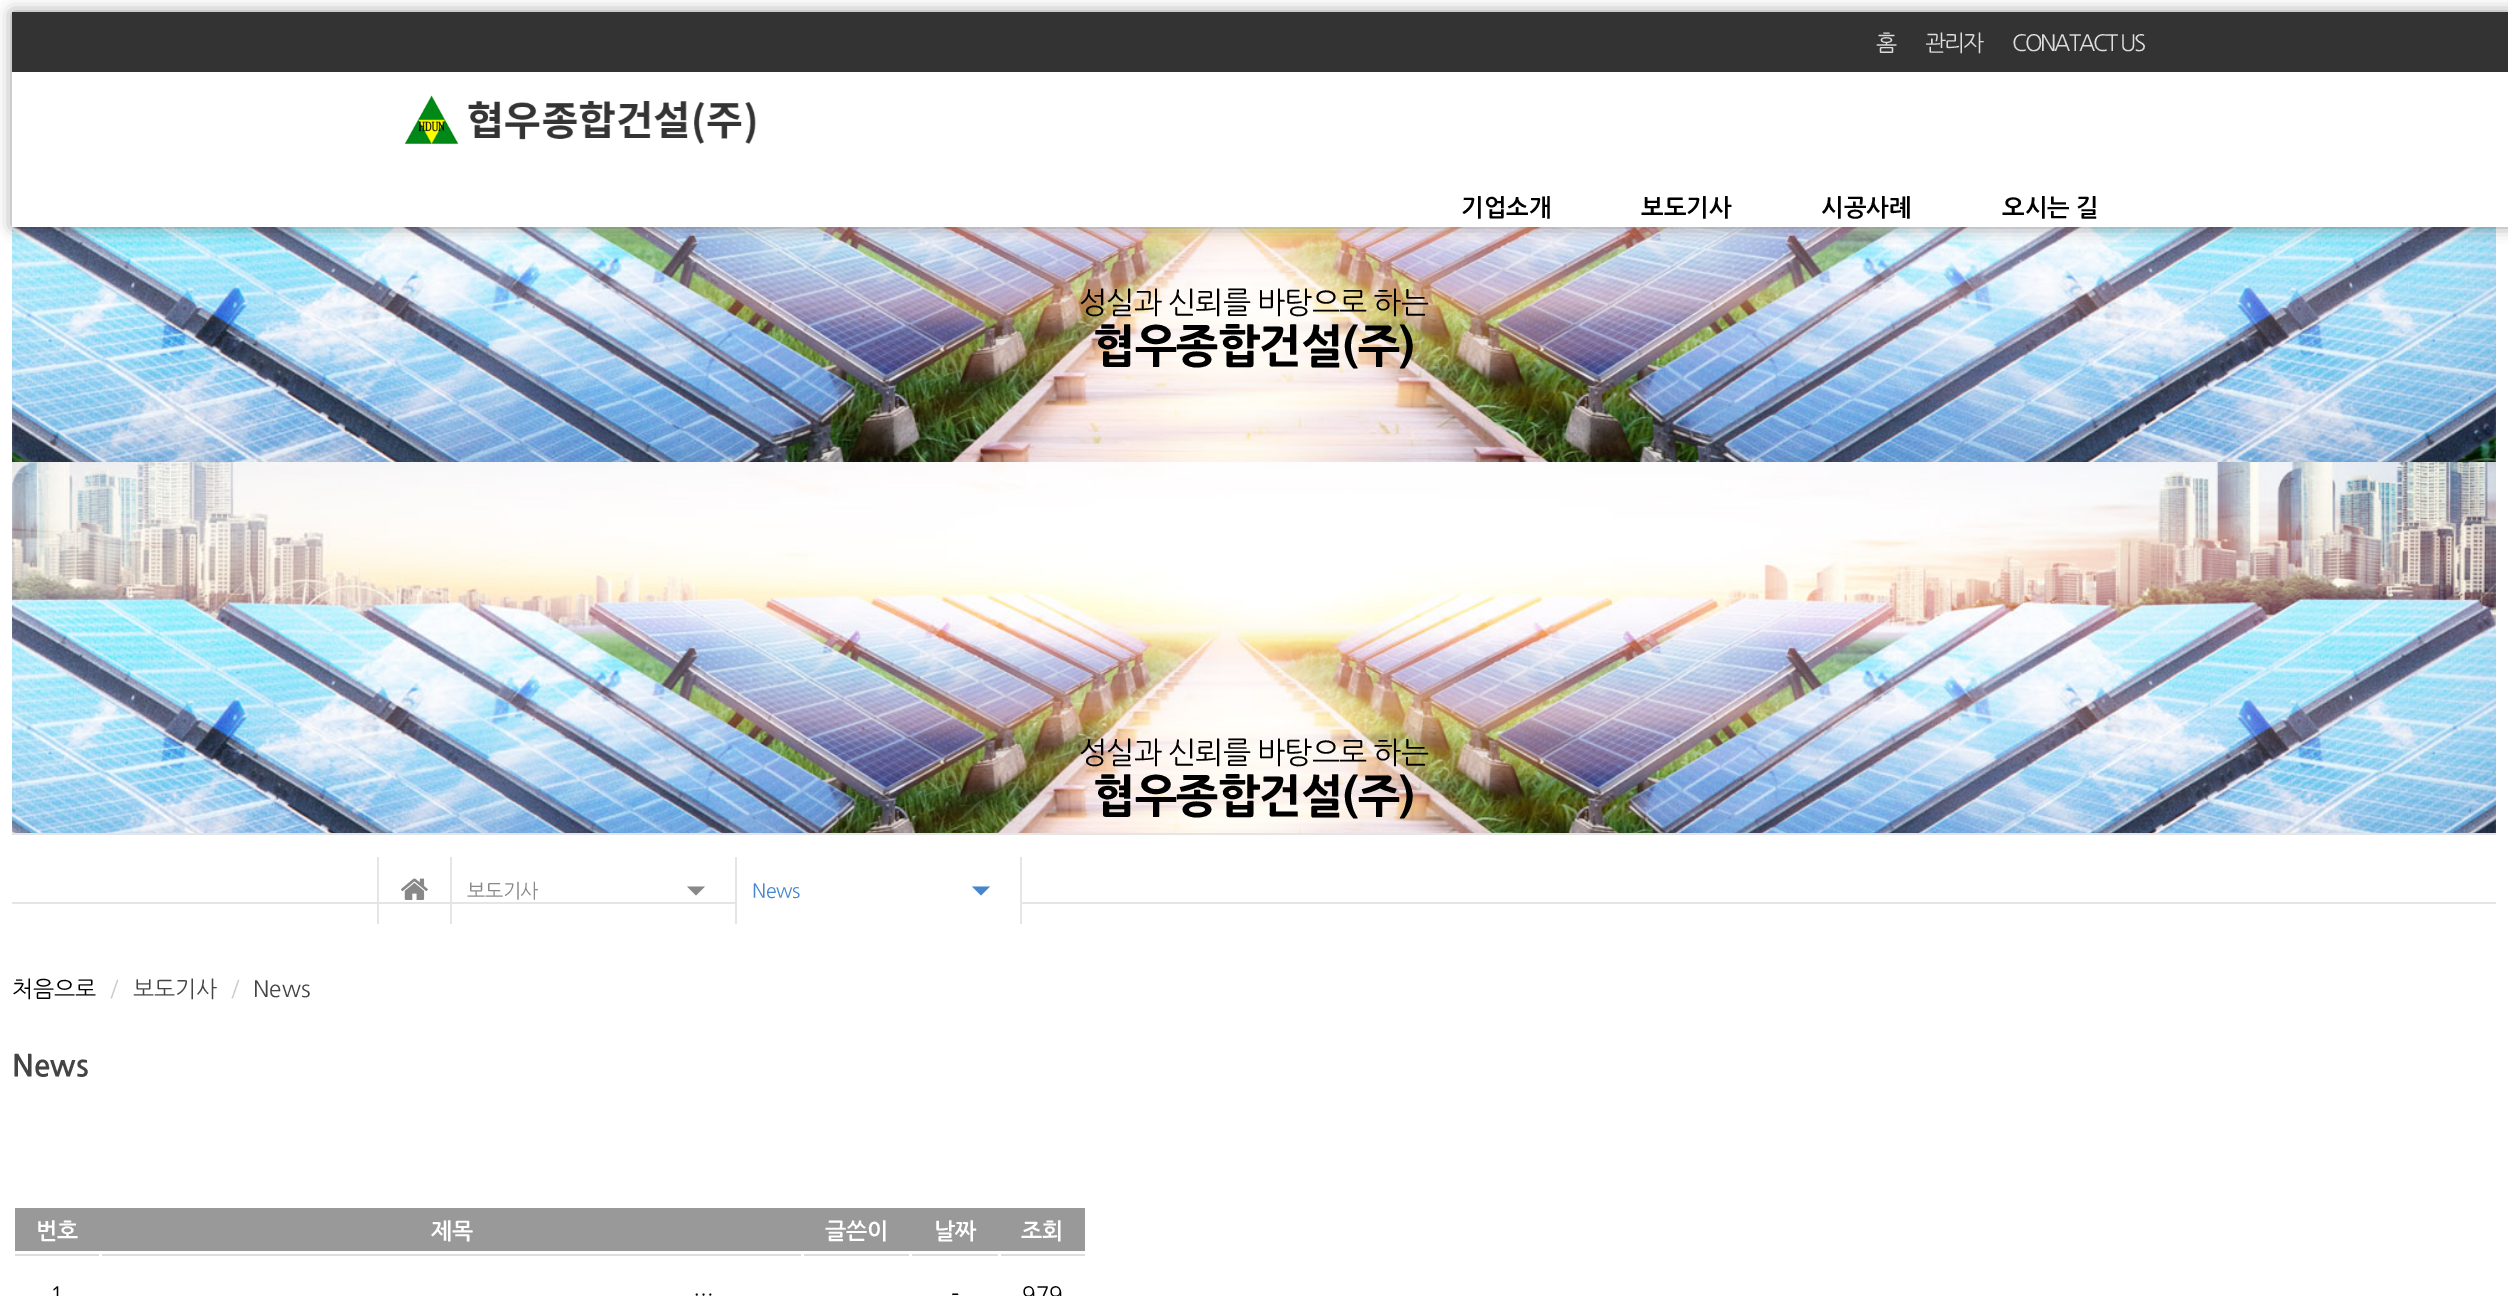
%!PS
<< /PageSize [2508 1296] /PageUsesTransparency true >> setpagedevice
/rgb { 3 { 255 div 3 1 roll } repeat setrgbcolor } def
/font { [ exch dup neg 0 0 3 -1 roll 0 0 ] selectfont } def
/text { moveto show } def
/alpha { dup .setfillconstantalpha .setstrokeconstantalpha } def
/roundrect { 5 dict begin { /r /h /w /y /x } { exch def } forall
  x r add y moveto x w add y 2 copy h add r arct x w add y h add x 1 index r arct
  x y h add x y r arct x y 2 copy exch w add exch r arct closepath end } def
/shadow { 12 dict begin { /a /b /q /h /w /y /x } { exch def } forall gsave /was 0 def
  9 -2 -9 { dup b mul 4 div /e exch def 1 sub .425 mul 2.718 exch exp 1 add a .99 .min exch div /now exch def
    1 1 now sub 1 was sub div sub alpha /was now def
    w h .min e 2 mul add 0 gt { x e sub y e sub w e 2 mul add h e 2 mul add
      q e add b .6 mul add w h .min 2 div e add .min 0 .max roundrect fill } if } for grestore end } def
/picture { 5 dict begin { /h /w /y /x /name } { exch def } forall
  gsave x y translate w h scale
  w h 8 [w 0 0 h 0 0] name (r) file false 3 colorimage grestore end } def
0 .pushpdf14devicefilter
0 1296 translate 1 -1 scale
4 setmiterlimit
255 255 255 rgb
0 0 2508 1296 rectfill
(img_02.rgb) 12 227 2484 235 picture
0 0 0 rgb
12 12 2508 215 0 7.5 0.4 shadow
255 255 255 rgb
12 72 2496 155 rectfill
51 51 51 rgb
12 12 2496 60 rectfill
(img_01.rgb) 404 95 352 50 picture
(img_03.rgb) 12 462 2484 371 picture
229 229 229 rgb
12 833 2484 2 rectfill
12 902 2484 2 rectfill
450 857 2 67 rectfill
377 857 2 67 rectfill
(img_04.rgb) 401 878 27 22 picture
735 857 2 67 rectfill
136 136 136 rgb
687 886.5 moveto 18 0 rlineto -9 9 rlineto closepath fill
229 229 229 rgb
1020 857 2 67 rectfill
255 255 255 rgb
737 902 283 2 rectfill
70 134 205 rgb
972 886.5 moveto 18 0 rlineto -9 9 rlineto closepath fill
153 153 153 rgb
15 1208 1070 43 rectfill
221 221 221 rgb
804 1254 105 2 rectfill
15 1254 84 2 rectfill
102 1254 699 2 rectfill
912 1254 86 2 rectfill
1001 1254 84 2 rectfill
/NanumGothic-Regular 22.5 font
1876 50 moveto -2.25 0 (홈) ashow
1925 50 moveto -2.25 0 (관리자) ashow
2012 50 moveto -2.25 0 (CONATACT US) ashow
/NanumGothic-Bold 24 font
0 0 0 rgb
(기업소개) 1461 215 text
(보도기사) 1641 215 text
(시공사례) 1821 215 text
(오시는 길) 2002 215 text
/NanumGothic-Regular 30 font
1079 312 moveto -1 0 32 -0.75 0 (성실과 신뢰를 바탕으로 하는) awidthshow
/NanumGothic-ExtraBold 45 font
1093 360 moveto -0.75 0 (협우종합건설\(주\)) ashow
/NanumGothic-Regular 30 font
1079 762 moveto -1 0 32 -0.75 0 (성실과 신뢰를 바탕으로 하는) awidthshow
/NanumGothic-ExtraBold 45 font
1093 810 moveto -0.75 0 (협우종합건설\(주\)) ashow
/NanumGothic-Regular 19.5 font
136 136 136 rgb
467 897 moveto -0.5 0 (보도기사) ashow
70 134 205 rgb
752 897 moveto -0.5 0 (News) ashow
/NanumGothic-Regular 22.5 font
0 0 0 rgb
(처음으로) 12 996 text
204 204 204 rgb
(/) 110 996 text
68 68 68 rgb
(보도기사) 133 996 text
204 204 204 rgb
(/) 231 996 text
68 68 68 rgb
(News) 253 996 text
/NanumGothic-Bold 30 font
(News) 12 1075 text
/NanumGothic-Bold 22.5 font
255 255 255 rgb
(번호) 36 1238 text
(제목) 431 1238 text
(글쓴이) 825 1238 text
(날짜) 934 1238 text
(조회) 1021 1238 text
/NanumGothic-Regular 22.5 font
0 0 0 rgb
(1) 50 1302 text
(…) 693 1302 text
(-) 951 1302 text
(979) 1022 1302 text
.poppdf14devicefilter showpage
